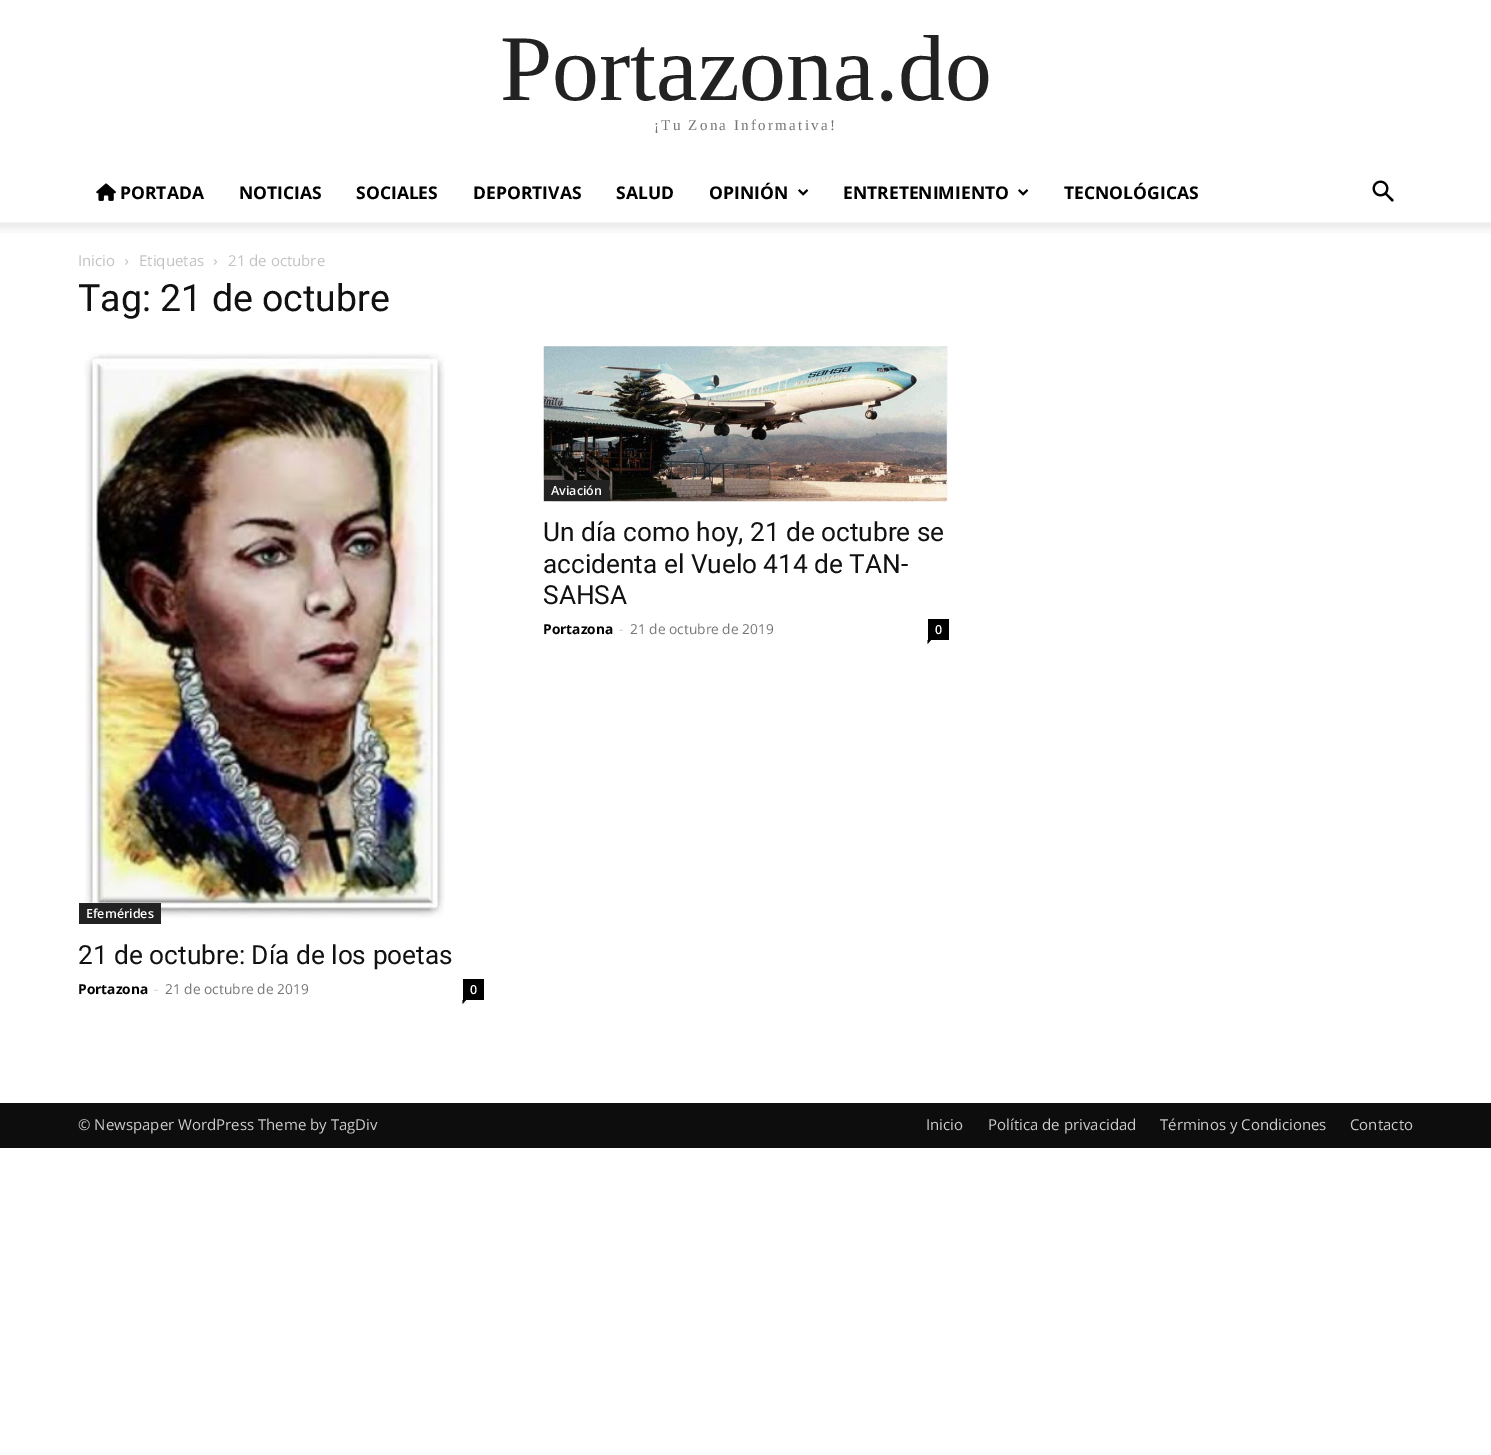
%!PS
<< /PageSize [1491 1455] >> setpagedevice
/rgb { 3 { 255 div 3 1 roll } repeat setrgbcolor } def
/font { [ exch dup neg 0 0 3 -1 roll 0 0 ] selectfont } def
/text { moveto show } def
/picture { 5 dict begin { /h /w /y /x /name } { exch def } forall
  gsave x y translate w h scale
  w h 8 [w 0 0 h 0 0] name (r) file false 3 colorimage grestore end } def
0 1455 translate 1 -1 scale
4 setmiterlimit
255 255 255 rgb
0 0 1491 1455 rectfill
(img_01.rgb) 96 183 20 18 picture
(img_02.rgb) 798 189 11 7 picture
(img_02.rgb) 1018 189 11 7 picture
(img_03.rgb) 1372 180 22 22 picture
(img_04.rgb) 0 222 1491 11 picture
(img_05.rgb) 125 259 4 6 picture
(img_06.rgb) 213 259 4 6 picture
(img_07.rgb) 543 346 405 156 picture
34 34 34 rgb
544 480 65 21 rectfill
0 0 0 rgb
928 619 21 21 rectfill
927.5 640 moveto 3.5 0 rlineto -3.5 4 rlineto closepath fill
(img_08.rgb) 84 353 361 565 picture
34 34 34 rgb
79 903 82 21 rectfill
0 0 0 rgb
463 979 21 21 rectfill
462.5 1000 moveto 3.5 0 rlineto -3.5 4 rlineto closepath fill
13 13 13 rgb
0 1103 1491 45 rectfill
/LiberationSerif-Regular 93.75 font
34 34 34 rgb
(Portazona.do) 500 100 text
/LiberationSerif-Regular 15 font
118 118 118 rgb
654 130 moveto 2.25 0 (¡Tu Zona Informativa!) ashow
/OpenSans-Bold 17.5 font
0 0 0 rgb
(PORTADA) 120 199 text
(NOTICIAS) 239 199 text
(SOCIALES) 356 199 text
(DEPORTIVAS) 473 199 text
(SALUD) 616 199 text
(OPINIÓN) 709 199 text
(ENTRETENIMIENTO) 843 199 text
(TECNOLÓGICAS) 1064 199 text
/OpenSans-Regular 15 font
195 195 195 rgb
(Inicio) 78 266 text
(Etiquetas) 139 266 text
(21 de octubre) 228 266 text
/Roboto-Regular 37.5 font
17 17 17 rgb
(Tag: 21 de octubre) 78 311 text
/OpenSans-SemiBold 12.5 font
255 255 255 rgb
(Aviación) 551 495 text
/Roboto-Regular 26.25 font
17 17 17 rgb
(Un día como hoy, 21 de octubre se) 543 541 text
(accidenta el Vuelo 414 de TAN-) 543 573 text
(SAHSA) 543 604 text
/OpenSans-Bold 13.75 font
0 0 0 rgb
(Portazona) 543 634 text
/OpenSans-Regular 13.75 font
204 204 204 rgb
(-) 619 634 text
118 118 118 rgb
(21 de octubre de 2019) 630 634 text
/OpenSans-SemiBold 12.5 font
255 255 255 rgb
(0) 935 634 text
(Efemérides) 86 918 text
/Roboto-Regular 26.25 font
17 17 17 rgb
(21 de octubre: Día de los poetas) 78 964 text
/OpenSans-Bold 13.75 font
0 0 0 rgb
(Portazona) 78 994 text
/OpenSans-Regular 13.75 font
204 204 204 rgb
(-) 154 994 text
118 118 118 rgb
(21 de octubre de 2019) 165 994 text
/OpenSans-SemiBold 12.5 font
255 255 255 rgb
(0) 470 994 text
/OpenSans-Regular 15 font
204 204 204 rgb
(© Newspaper WordPress Theme by TagDiv) 78 1130 text
(Inicio) 926 1130 text
(Política de privacidad) 988 1130 text
(Términos y Condiciones) 1160 1130 text
(Contacto) 1350 1130 text
showpage
